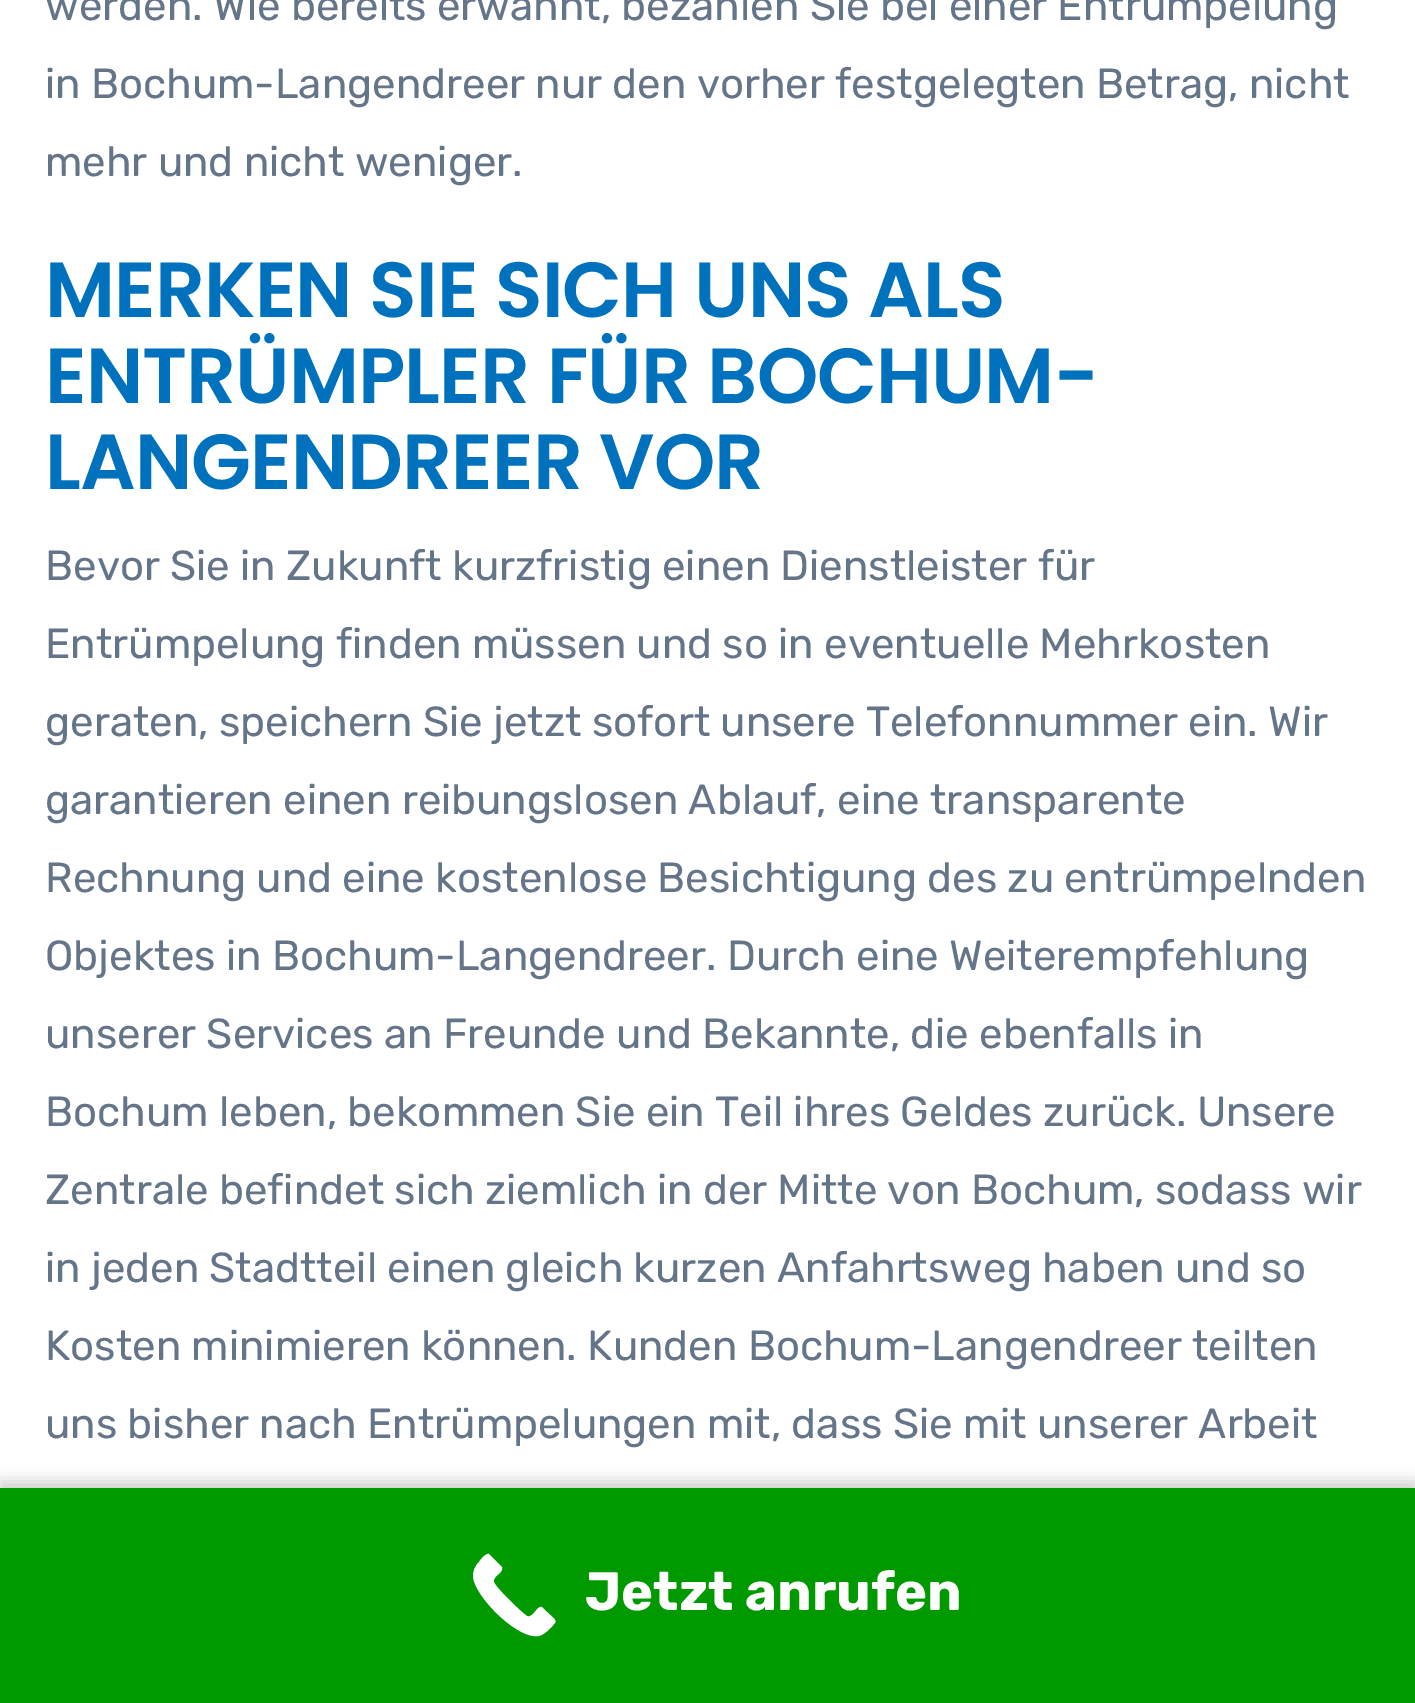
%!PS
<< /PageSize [1415 1703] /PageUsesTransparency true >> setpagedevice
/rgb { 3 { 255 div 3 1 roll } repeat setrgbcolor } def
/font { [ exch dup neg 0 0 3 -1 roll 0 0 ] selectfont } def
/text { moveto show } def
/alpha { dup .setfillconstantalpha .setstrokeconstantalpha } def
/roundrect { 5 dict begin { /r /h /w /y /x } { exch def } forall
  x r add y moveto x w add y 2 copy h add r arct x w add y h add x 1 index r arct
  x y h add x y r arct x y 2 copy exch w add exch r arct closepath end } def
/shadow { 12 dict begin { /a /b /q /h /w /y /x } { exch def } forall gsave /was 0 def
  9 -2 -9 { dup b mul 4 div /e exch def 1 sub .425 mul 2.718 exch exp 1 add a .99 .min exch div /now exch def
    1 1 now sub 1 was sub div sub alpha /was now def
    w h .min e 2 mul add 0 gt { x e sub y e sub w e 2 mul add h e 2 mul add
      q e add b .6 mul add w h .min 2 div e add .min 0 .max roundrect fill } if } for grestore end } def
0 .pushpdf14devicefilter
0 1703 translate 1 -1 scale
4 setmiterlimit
255 255 255 rgb
0 0 1415 1703 rectfill
0 0 0 rgb
0 1482 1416 216 0 7.5 0.2 shadow
0 153 0 rgb
0 1488 1415 215 rectfill
255 255 255 rgb
554 1624 moveto -4 5 -9 10 -15 12 rcurveto -21 4 -65 -40 -66 -60 rcurveto 0 -5 2 -10 6 -14 rcurveto 2 -3 7 -9 10 -8 rcurveto 13 13 rlineto 2 6 -10 9 -8 15 rcurveto 1 5 28 31 33 34 rcurveto 6 3 10 -11 15 -9 rcurveto 5 5 rlineto 2 2 7 6 8 8 rcurveto 1 2 0 3 -1 4 rcurveto closepath fill
/Rubik-Regular 42 font
100 117 137 rgb
(werden. Wie bereits erwähnt, bezahlen Sie bei einer Entrümpelung) 45 20 text
(in Bochum-Langendreer nur den vorher festgelegten Betrag, nicht) 45 98 text
(mehr und nicht weniger.) 45 176 text
/Poppins-SemiBold 78 font
0 113 189 rgb
45 317 moveto -0.9 0 (MERKEN SIE SICH UNS ALS) ashow
45 403 moveto -0.9 0 (ENTRÜMPLER FÜR BOCHUM-) ashow
45 489 moveto -0.9 0 (LANGENDREER VOR) ashow
/Rubik-Regular 42 font
100 117 137 rgb
(Bevor Sie in Zukunft kurzfristig einen Dienstleister für) 45 580 text
(Entrümpelung finden müssen und so in eventuelle Mehrkosten) 45 658 text
(geraten, speichern Sie jetzt sofort unsere Telefonnummer ein. Wir) 45 736 text
(garantieren einen reibungslosen Ablauf, eine transparente) 45 814 text
(Rechnung und eine kostenlose Besichtigung des zu entrümpelnden) 45 892 text
(Objektes in Bochum-Langendreer. Durch eine Weiterempfehlung) 45 970 text
(unserer Services an Freunde und Bekannte, die ebenfalls in) 45 1048 text
(Bochum leben, bekommen Sie ein Teil ihres Geldes zurück. Unsere) 45 1126 text
(Zentrale befindet sich ziemlich in der Mitte von Bochum, sodass wir) 45 1204 text
(in jeden Stadtteil einen gleich kurzen Anfahrtsweg haben und so) 45 1282 text
(Kosten minimieren können. Kunden Bochum-Langendreer teilten) 45 1360 text
(uns bisher nach Entrümpelungen mit, dass Sie mit unserer Arbeit) 45 1438 text
/Rubik-Bold 54 font
255 255 255 rgb
(Jetzt anrufen) 585 1610 text
.poppdf14devicefilter showpage
